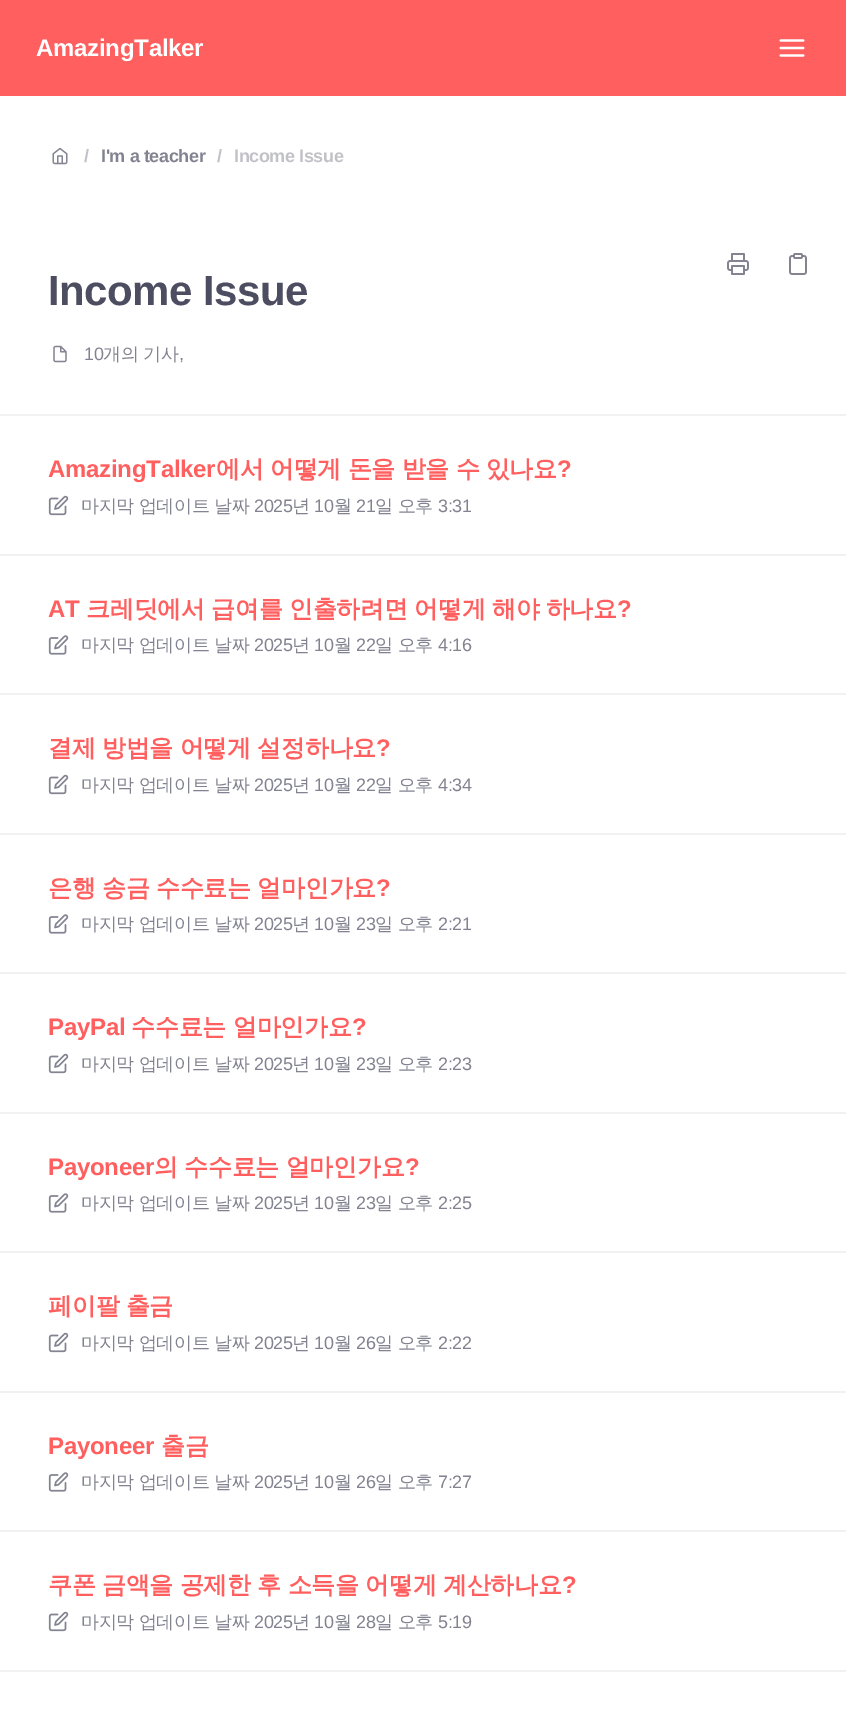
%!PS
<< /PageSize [846 1710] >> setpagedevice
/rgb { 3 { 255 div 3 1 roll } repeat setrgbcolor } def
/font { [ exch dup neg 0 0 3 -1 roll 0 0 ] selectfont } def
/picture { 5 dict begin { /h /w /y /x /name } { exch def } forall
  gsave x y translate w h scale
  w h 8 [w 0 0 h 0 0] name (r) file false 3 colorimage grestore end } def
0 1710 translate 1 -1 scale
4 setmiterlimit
255 255 255 rgb
0 0 846 1710 rectfill
255 95 95 rgb
0 0 846 96 rectfill
(img_01.rgb) 779 39 26 18 picture
(img_02.rgb) 52 147 16 18 picture
(img_03.rgb) 727 253 22 22 picture
(img_04.rgb) 789 253 18 22 picture
(img_05.rgb) 53 345 14 18 picture
241 241 242 rgb
0 414 846 2 rectfill
(img_06.rgb) 48 495 21 21 picture
0 554 846 2 rectfill
(img_07.rgb) 48 635 21 20 picture
0 693 846 2 rectfill
(img_06.rgb) 48 774 21 21 picture
0 833 846 2 rectfill
(img_07.rgb) 48 914 21 20 picture
0 972 846 2 rectfill
(img_06.rgb) 48 1053 21 21 picture
0 1112 846 2 rectfill
(img_07.rgb) 48 1193 21 20 picture
0 1251 846 2 rectfill
(img_06.rgb) 48 1332 21 21 picture
0 1391 846 2 rectfill
(img_07.rgb) 48 1472 21 20 picture
0 1530 846 2 rectfill
(img_06.rgb) 48 1611 21 21 picture
0 1670 846 2 rectfill
/LiberationSans-Bold 24 font
255 255 255 rgb
36 56 moveto -0.25 0 (AmazingTalker) ashow
/LiberationSans-Bold 18 font
193 193 200 rgb
84 162 moveto -0.4 0 (/) ashow
130 130 144 rgb
101 162 moveto -0.4 0 (I'm a teacher) ashow
193 193 200 rgb
217 162 moveto -0.4 0 (/) ashow
234 162 moveto -0.4 0 (Income Issue) ashow
/LiberationSans-Bold 42 font
77 77 97 rgb
48 305 moveto -0.5 0 (Income Issue) ashow
/LiberationSans-Regular 18 font
130 130 144 rgb
84 360 moveto -0.4 0 (10) ashow
/WenQuanYiZenHei-Medium 18 font
103 360 moveto -0.4 0 (개의 기사) ashow
/LiberationSans-Regular 18 font
179 360 moveto -0.4 0 (,) ashow
/LiberationSans-Bold 24 font
255 95 95 rgb
48 477 moveto -0.25 0 (AmazingTalker) ashow
/WenQuanYiZenHei-Bold 24 font
216 477 moveto -0.5 0 32 -0.25 0 (에서 어떻게 돈을 받을 수 있나요) awidthshow
/LiberationSans-Bold 24 font
557 477 moveto -0.25 0 (?) ashow
/WenQuanYiZenHei-Medium 18 font
130 130 144 rgb
81 512 moveto -0.4 0 (마지막 업데이트 날짜) ashow
/LiberationSans-Regular 18 font
254 512 moveto -0.4 0 (2025) ashow
/WenQuanYiZenHei-Medium 18 font
292 512 moveto -0.4 0 (년) ashow
/LiberationSans-Regular 18 font
314 512 moveto -0.4 0 (10) ashow
/WenQuanYiZenHei-Medium 18 font
334 512 moveto -0.4 0 (월) ashow
/LiberationSans-Regular 18 font
356 512 moveto -0.4 0 (21) ashow
/WenQuanYiZenHei-Medium 18 font
375 512 moveto -0.4 0 (일 오후) ashow
/LiberationSans-Regular 18 font
438 512 moveto -0.4 0 (3:31) ashow
/LiberationSans-Bold 24 font
255 95 95 rgb
48 617 moveto -0.25 0 (AT) ashow
/WenQuanYiZenHei-Bold 24 font
86 617 moveto -0.5 0 32 -0.25 0 (크레딧에서 급여를 인출하려면 어떻게 해야 하나요) awidthshow
/LiberationSans-Bold 24 font
617 617 moveto -0.25 0 (?) ashow
/WenQuanYiZenHei-Medium 18 font
130 130 144 rgb
81 651 moveto -0.4 0 (마지막 업데이트 날짜) ashow
/LiberationSans-Regular 18 font
254 651 moveto -0.4 0 (2025) ashow
/WenQuanYiZenHei-Medium 18 font
292 651 moveto -0.4 0 (년) ashow
/LiberationSans-Regular 18 font
314 651 moveto -0.4 0 (10) ashow
/WenQuanYiZenHei-Medium 18 font
334 651 moveto -0.4 0 (월) ashow
/LiberationSans-Regular 18 font
356 651 moveto -0.4 0 (22) ashow
/WenQuanYiZenHei-Medium 18 font
375 651 moveto -0.4 0 (일 오후) ashow
/LiberationSans-Regular 18 font
438 651 moveto -0.4 0 (4:16) ashow
/WenQuanYiZenHei-Bold 24 font
255 95 95 rgb
48 756 moveto -0.5 0 32 -0.25 0 (결제 방법을 어떻게 설정하나요) awidthshow
/LiberationSans-Bold 24 font
376 756 moveto -0.25 0 (?) ashow
/WenQuanYiZenHei-Medium 18 font
130 130 144 rgb
81 791 moveto -0.4 0 (마지막 업데이트 날짜) ashow
/LiberationSans-Regular 18 font
254 791 moveto -0.4 0 (2025) ashow
/WenQuanYiZenHei-Medium 18 font
292 791 moveto -0.4 0 (년) ashow
/LiberationSans-Regular 18 font
314 791 moveto -0.4 0 (10) ashow
/WenQuanYiZenHei-Medium 18 font
334 791 moveto -0.4 0 (월) ashow
/LiberationSans-Regular 18 font
356 791 moveto -0.4 0 (22) ashow
/WenQuanYiZenHei-Medium 18 font
375 791 moveto -0.4 0 (일 오후) ashow
/LiberationSans-Regular 18 font
438 791 moveto -0.4 0 (4:34) ashow
/WenQuanYiZenHei-Bold 24 font
255 95 95 rgb
48 896 moveto -0.5 0 32 -0.25 0 (은행 송금 수수료는 얼마인가요) awidthshow
/LiberationSans-Bold 24 font
376 896 moveto -0.25 0 (?) ashow
/WenQuanYiZenHei-Medium 18 font
130 130 144 rgb
81 930 moveto -0.4 0 (마지막 업데이트 날짜) ashow
/LiberationSans-Regular 18 font
254 930 moveto -0.4 0 (2025) ashow
/WenQuanYiZenHei-Medium 18 font
292 930 moveto -0.4 0 (년) ashow
/LiberationSans-Regular 18 font
314 930 moveto -0.4 0 (10) ashow
/WenQuanYiZenHei-Medium 18 font
334 930 moveto -0.4 0 (월) ashow
/LiberationSans-Regular 18 font
356 930 moveto -0.4 0 (23) ashow
/WenQuanYiZenHei-Medium 18 font
375 930 moveto -0.4 0 (일 오후) ashow
/LiberationSans-Regular 18 font
438 930 moveto -0.4 0 (2:21) ashow
/LiberationSans-Bold 24 font
255 95 95 rgb
48 1035 moveto -0.25 0 (PayPal) ashow
/WenQuanYiZenHei-Bold 24 font
131 1035 moveto -0.25 0 (수수료는 얼마인가요) ashow
/LiberationSans-Bold 24 font
352 1035 moveto -0.25 0 (?) ashow
/WenQuanYiZenHei-Medium 18 font
130 130 144 rgb
81 1070 moveto -0.4 0 (마지막 업데이트 날짜) ashow
/LiberationSans-Regular 18 font
254 1070 moveto -0.4 0 (2025) ashow
/WenQuanYiZenHei-Medium 18 font
292 1070 moveto -0.4 0 (년) ashow
/LiberationSans-Regular 18 font
314 1070 moveto -0.4 0 (10) ashow
/WenQuanYiZenHei-Medium 18 font
334 1070 moveto -0.4 0 (월) ashow
/LiberationSans-Regular 18 font
356 1070 moveto -0.4 0 (23) ashow
/WenQuanYiZenHei-Medium 18 font
375 1070 moveto -0.4 0 (일 오후) ashow
/LiberationSans-Regular 18 font
438 1070 moveto -0.4 0 (2:23) ashow
/LiberationSans-Bold 24 font
255 95 95 rgb
48 1175 moveto -0.25 0 (Payoneer) ashow
/WenQuanYiZenHei-Bold 24 font
154 1175 moveto -0.5 0 32 -0.25 0 (의 수수료는 얼마인가요) awidthshow
/LiberationSans-Bold 24 font
405 1175 moveto -0.25 0 (?) ashow
/WenQuanYiZenHei-Medium 18 font
130 130 144 rgb
81 1209 moveto -0.4 0 (마지막 업데이트 날짜) ashow
/LiberationSans-Regular 18 font
254 1209 moveto -0.4 0 (2025) ashow
/WenQuanYiZenHei-Medium 18 font
292 1209 moveto -0.4 0 (년) ashow
/LiberationSans-Regular 18 font
314 1209 moveto -0.4 0 (10) ashow
/WenQuanYiZenHei-Medium 18 font
334 1209 moveto -0.4 0 (월) ashow
/LiberationSans-Regular 18 font
356 1209 moveto -0.4 0 (23) ashow
/WenQuanYiZenHei-Medium 18 font
375 1209 moveto -0.4 0 (일 오후) ashow
/LiberationSans-Regular 18 font
438 1209 moveto -0.4 0 (2:25) ashow
/WenQuanYiZenHei-Bold 24 font
255 95 95 rgb
48 1314 moveto -0.5 0 32 -0.25 0 (페이팔 출금) awidthshow
/WenQuanYiZenHei-Medium 18 font
130 130 144 rgb
81 1349 moveto -0.4 0 (마지막 업데이트 날짜) ashow
/LiberationSans-Regular 18 font
254 1349 moveto -0.4 0 (2025) ashow
/WenQuanYiZenHei-Medium 18 font
292 1349 moveto -0.4 0 (년) ashow
/LiberationSans-Regular 18 font
314 1349 moveto -0.4 0 (10) ashow
/WenQuanYiZenHei-Medium 18 font
334 1349 moveto -0.4 0 (월) ashow
/LiberationSans-Regular 18 font
356 1349 moveto -0.4 0 (26) ashow
/WenQuanYiZenHei-Medium 18 font
375 1349 moveto -0.4 0 (일 오후) ashow
/LiberationSans-Regular 18 font
438 1349 moveto -0.4 0 (2:22) ashow
/LiberationSans-Bold 24 font
255 95 95 rgb
48 1454 moveto -0.25 0 (Payoneer) ashow
/WenQuanYiZenHei-Bold 24 font
161 1454 moveto -0.25 0 (출금) ashow
/WenQuanYiZenHei-Medium 18 font
130 130 144 rgb
81 1488 moveto -0.4 0 (마지막 업데이트 날짜) ashow
/LiberationSans-Regular 18 font
254 1488 moveto -0.4 0 (2025) ashow
/WenQuanYiZenHei-Medium 18 font
292 1488 moveto -0.4 0 (년) ashow
/LiberationSans-Regular 18 font
314 1488 moveto -0.4 0 (10) ashow
/WenQuanYiZenHei-Medium 18 font
334 1488 moveto -0.4 0 (월) ashow
/LiberationSans-Regular 18 font
356 1488 moveto -0.4 0 (26) ashow
/WenQuanYiZenHei-Medium 18 font
375 1488 moveto -0.4 0 (일 오후) ashow
/LiberationSans-Regular 18 font
438 1488 moveto -0.4 0 (7:27) ashow
/WenQuanYiZenHei-Bold 24 font
255 95 95 rgb
48 1593 moveto -0.5 0 32 -0.25 0 (쿠폰 금액을 공제한 후 소득을 어떻게 계산하나요) awidthshow
/LiberationSans-Bold 24 font
562 1593 moveto -0.25 0 (?) ashow
/WenQuanYiZenHei-Medium 18 font
130 130 144 rgb
81 1628 moveto -0.4 0 (마지막 업데이트 날짜) ashow
/LiberationSans-Regular 18 font
254 1628 moveto -0.4 0 (2025) ashow
/WenQuanYiZenHei-Medium 18 font
292 1628 moveto -0.4 0 (년) ashow
/LiberationSans-Regular 18 font
314 1628 moveto -0.4 0 (10) ashow
/WenQuanYiZenHei-Medium 18 font
334 1628 moveto -0.4 0 (월) ashow
/LiberationSans-Regular 18 font
356 1628 moveto -0.4 0 (28) ashow
/WenQuanYiZenHei-Medium 18 font
375 1628 moveto -0.4 0 (일 오후) ashow
/LiberationSans-Regular 18 font
438 1628 moveto -0.4 0 (5:19) ashow
showpage
